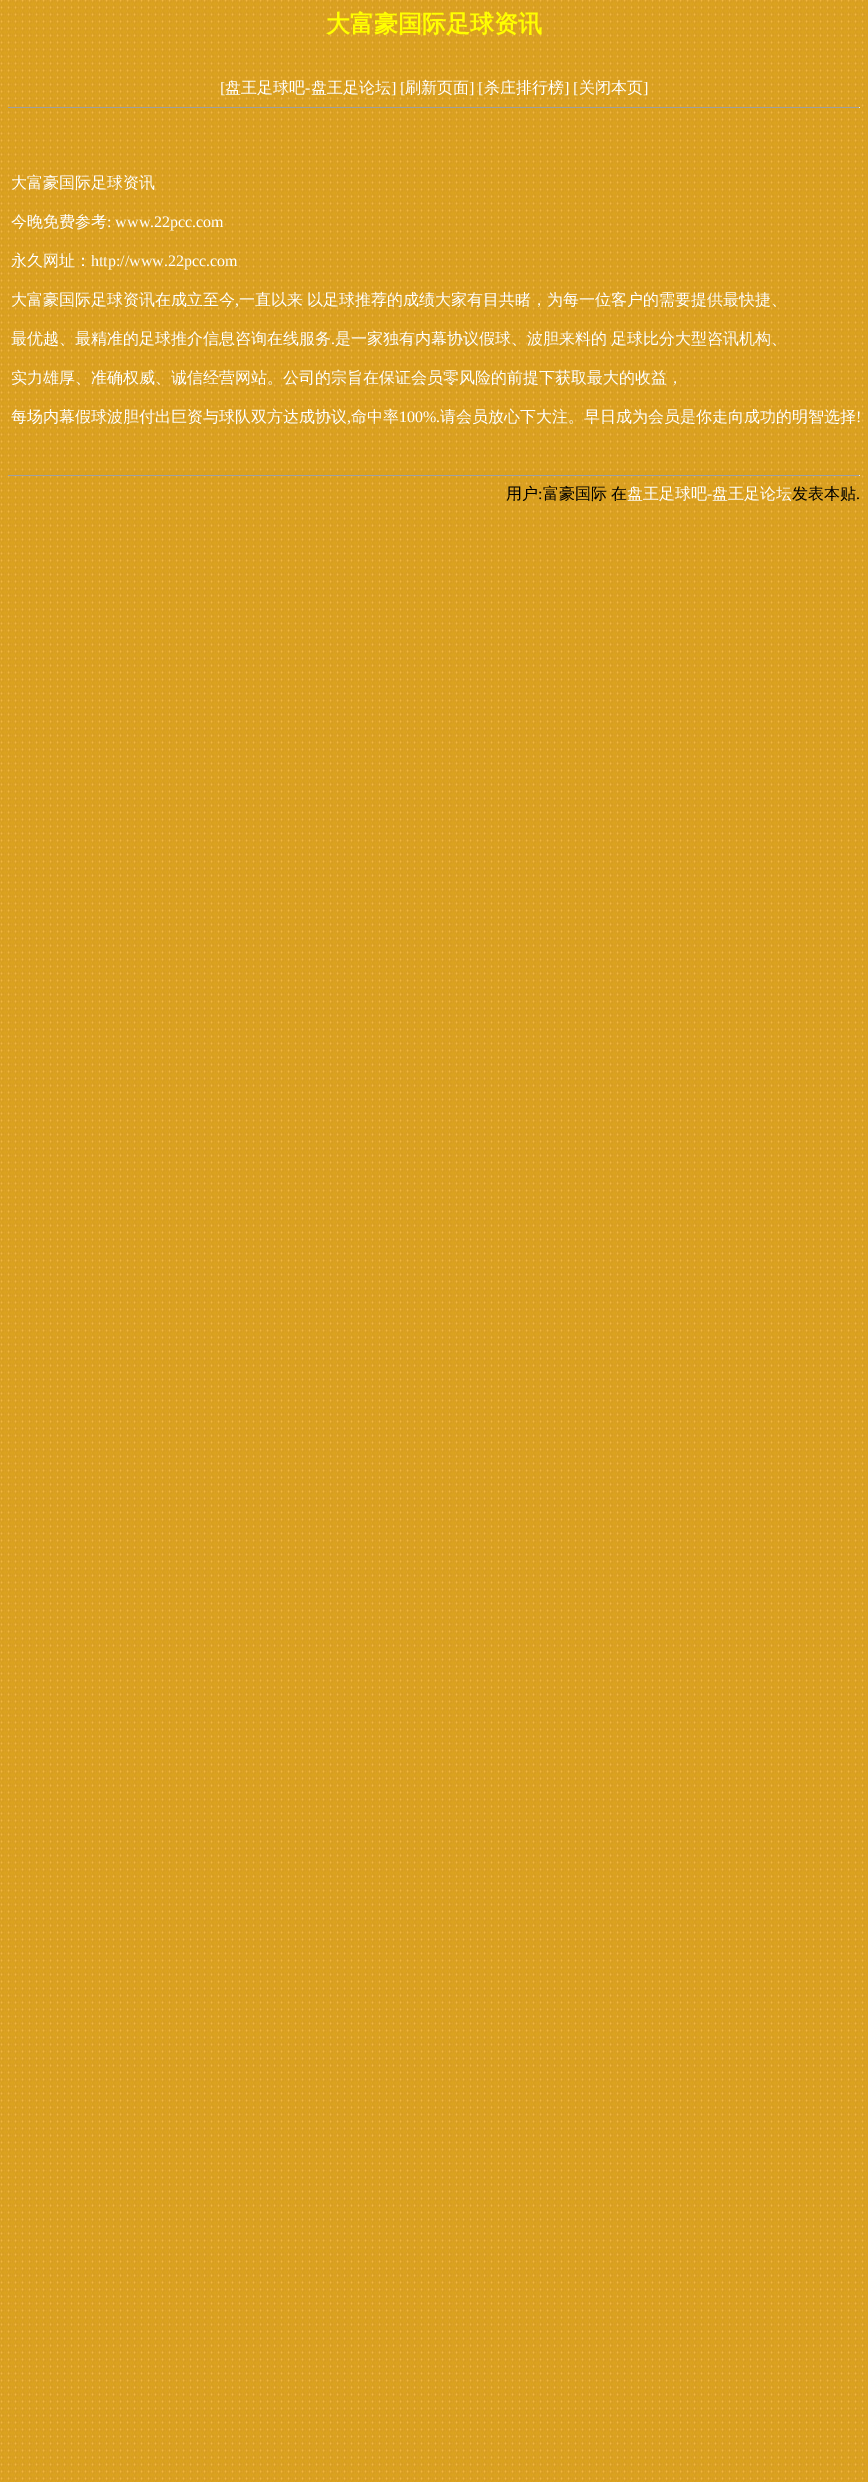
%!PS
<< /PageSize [868 2482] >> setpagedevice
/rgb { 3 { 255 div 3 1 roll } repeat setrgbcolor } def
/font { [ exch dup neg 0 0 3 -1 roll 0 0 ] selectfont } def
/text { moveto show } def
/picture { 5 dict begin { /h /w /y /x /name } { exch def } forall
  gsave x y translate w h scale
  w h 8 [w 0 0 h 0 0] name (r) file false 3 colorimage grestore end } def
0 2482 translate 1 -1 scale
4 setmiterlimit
255 255 255 rgb
0 0 868 2482 rectfill
(img_01.rgb) 0 0 868 2482 picture
159 159 159 rgb
8 107 852 1 rectfill
238 238 238 rgb
859 107 1 1 rectfill
159 159 159 rgb
8 475 852 1 rectfill
238 238 238 rgb
859 475 1 1 rectfill
/WenQuanYiZenHei-Bold 24 font
255 255 0 rgb
(大富豪国际足球资讯) 326 32 text
/LiberationSerif-Regular 16 font
255 255 255 rgb
([) 220 93 text
/WenQuanYiZenHei-Medium 16 font
(盘王足球吧) 225 93 text
/LiberationSerif-Regular 16 font
(-) 305 93 text
/WenQuanYiZenHei-Medium 16 font
(盘王足论坛) 311 93 text
/LiberationSerif-Regular 16 font
(] [) 391 93 text
/WenQuanYiZenHei-Medium 16 font
(刷新页面) 405 93 text
/LiberationSerif-Regular 16 font
(] [) 469 93 text
/WenQuanYiZenHei-Medium 16 font
(杀庄排行榜) 484 93 text
/LiberationSerif-Regular 16 font
(] [) 564 93 text
/WenQuanYiZenHei-Medium 16 font
(关闭本页) 579 93 text
/LiberationSerif-Regular 16 font
(]) 643 93 text
/WenQuanYiZenHei-Medium 16 font
(大富豪国际足球资讯) 11 188 text
(今晚免费参考) 11 227 text
/LiberationSerif-Regular 16 font
(: www.22pcc.com) 107 227 text
/WenQuanYiZenHei-Medium 16 font
(永久网址：) 11 266 text
/LiberationSerif-Regular 16 font
(http://www.22pcc.com) 91 266 text
/WenQuanYiZenHei-Medium 16 font
(大富豪国际足球资讯在成立至今) 11 305 text
/LiberationSerif-Regular 16 font
(,) 235 305 text
/WenQuanYiZenHei-Medium 16 font
239 305 moveto -1 0 32 (一直以来 以足球推荐的成绩大家有目共睹，为每一位客户的需要提供最快捷、) widthshow
(最优越、最精准的足球推介信息咨询在线服务) 11 344 text
/LiberationSerif-Regular 16 font
(.) 331 344 text
/WenQuanYiZenHei-Medium 16 font
335 344 moveto -1 0 32 (是一家独有内幕协议假球、波胆来料的 足球比分大型咨讯机构、) widthshow
(实力雄厚、准确权威、诚信经营网站。公司的宗旨在保证会员零风险的前提下获取最大的收益，) 11 383 text
(每场内幕假球波胆付出巨资与球队双方达成协议) 11 422 text
/LiberationSerif-Regular 16 font
(,) 347 422 text
/WenQuanYiZenHei-Medium 16 font
(命中率) 351 422 text
/LiberationSerif-Regular 16 font
(100%.) 399 422 text
/WenQuanYiZenHei-Medium 16 font
(请会员放心下大注。早日成为会员是你走向成功的明智选择) 440 422 text
/LiberationSerif-Regular 16 font
(!) 856 422 text
/WenQuanYiZenHei-Medium 16 font
0 0 0 rgb
(用户) 506 499 text
/LiberationSerif-Regular 16 font
(:) 538 499 text
/WenQuanYiZenHei-Medium 16 font
(富豪国际) 543 499 text
(在) 611 499 text
255 255 255 rgb
(盘王足球吧) 627 499 text
/LiberationSerif-Regular 16 font
(-) 707 499 text
/WenQuanYiZenHei-Medium 16 font
(盘王足论坛) 712 499 text
0 0 0 rgb
(发表本贴) 792 499 text
/LiberationSerif-Regular 16 font
(.) 856 499 text
showpage
